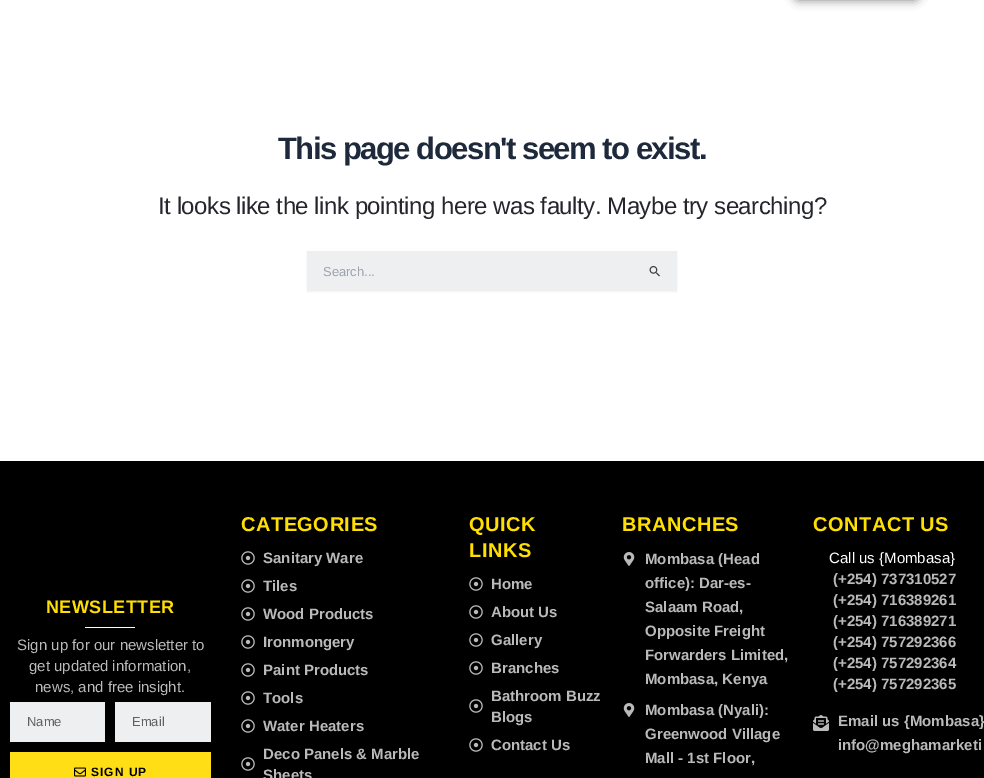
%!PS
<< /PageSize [984 778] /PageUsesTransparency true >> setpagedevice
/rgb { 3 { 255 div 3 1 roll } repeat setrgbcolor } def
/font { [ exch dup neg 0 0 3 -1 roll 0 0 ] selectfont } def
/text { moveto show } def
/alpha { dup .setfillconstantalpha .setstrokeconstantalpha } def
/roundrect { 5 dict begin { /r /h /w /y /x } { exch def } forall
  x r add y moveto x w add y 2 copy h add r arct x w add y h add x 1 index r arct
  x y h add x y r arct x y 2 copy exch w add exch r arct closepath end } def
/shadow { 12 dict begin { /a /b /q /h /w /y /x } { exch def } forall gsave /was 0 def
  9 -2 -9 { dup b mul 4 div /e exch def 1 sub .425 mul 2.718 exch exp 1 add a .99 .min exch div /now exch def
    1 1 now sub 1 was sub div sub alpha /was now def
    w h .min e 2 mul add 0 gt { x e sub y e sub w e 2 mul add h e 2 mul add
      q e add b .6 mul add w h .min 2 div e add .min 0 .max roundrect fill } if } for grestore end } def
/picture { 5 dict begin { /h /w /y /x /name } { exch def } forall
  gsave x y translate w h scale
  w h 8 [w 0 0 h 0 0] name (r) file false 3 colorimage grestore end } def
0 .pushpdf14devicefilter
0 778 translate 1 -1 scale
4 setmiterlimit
255 255 255 rgb
0 0 984 778 rectfill
0 0 0 rgb
794 -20 125 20 5 5 0.5 shadow
307 252 370 40 0 1 0.05 shadow
238 239 241 rgb
307 251 370 40 rectfill
(img_01.rgb) 649 266 11 11 picture
0 0 0 rgb
0 461 984 317 rectfill
255 255 255 rgb
85 627 50 1 rectfill
238 239 241 rgb
10 702 95 40 rectfill
115 702 96 40 rectfill
255 222 22 rgb
10 752 201 26 rectfill
(img_02.rgb) 74 767 12 10 picture
(img_03.rgb) 241 551 14 14 picture
(img_03.rgb) 241 579 14 14 picture
(img_03.rgb) 241 607 14 14 picture
(img_03.rgb) 241 635 14 14 picture
(img_03.rgb) 241 663 14 14 picture
(img_03.rgb) 241 691 14 14 picture
(img_03.rgb) 241 719 14 14 picture
(img_03.rgb) 241 757 14 14 picture
(img_03.rgb) 469 577 14 14 picture
(img_03.rgb) 469 605 14 14 picture
(img_03.rgb) 469 633 14 14 picture
(img_03.rgb) 469 661 14 14 picture
(img_03.rgb) 469 699 14 14 picture
(img_03.rgb) 469 738 14 14 picture
(img_04.rgb) 623 552 12 14 picture
(img_04.rgb) 623 703 12 14 picture
(img_05.rgb) 813 715 16 16 picture
/LiberationSans-Bold 31 font
30 41 59 rgb
278 159 moveto -1.5 0 (This page doesn't seem to exist.) ashow
/LiberationSans-Regular 24 font
36 38 43 rgb
158 214 moveto -0.5 0 (It looks like the link pointing here was faulty. Maybe try searching?) ashow
/LiberationSans-Regular 13 font
156 163 175 rgb
(Search...) 323 276 text
/LiberationSans-Bold 18 font
255 222 2 rgb
46 613 moveto 0.5 0 (NEWSLETTER) ashow
/LiberationSans-Regular 15 font
186 186 186 rgb
(Sign up for our newsletter to) 17 650 text
(get updated information,) 29 671 text
(news, and free insight.) 35 692 text
/LiberationSans-Regular 13 font
95 96 96 rgb
(Name) 27 726 text
(Email) 132 726 text
/LiberationSans-Bold 12 font
0 0 0 rgb
91 776 moveto 1 0 (SIGN UP) ashow
/LiberationSans-Bold 20 font
255 222 2 rgb
241 531 moveto 0.5 0 (CATEGORIES) ashow
/LiberationSans-Bold 15 font
186 186 186 rgb
(Sanitary Ware) 263 563 text
(Tiles) 263 591 text
(Wood Products) 263 619 text
(Ironmongery) 263 647 text
(Paint Products) 263 675 text
(Tools) 263 703 text
(Water Heaters) 263 731 text
(Deco Panels & Marble) 263 759 text
(Sheets) 263 780 text
/LiberationSans-Bold 20 font
255 222 2 rgb
469 531 moveto 0.5 0 (QUICK) ashow
469 557 moveto 0.5 0 (LINKS) ashow
/LiberationSans-Bold 15 font
186 186 186 rgb
(Home) 491 589 text
(About Us) 491 617 text
(Gallery) 491 645 text
(Branches) 491 673 text
(Bathroom Buzz) 491 701 text
(Blogs) 491 722 text
(Contact Us) 491 750 text
/LiberationSans-Bold 20 font
255 222 2 rgb
622 531 moveto 0.5 0 (BRANCHES) ashow
/LiberationSans-Bold 15 font
186 186 186 rgb
(Mombasa \(Head) 645 564 text
(office\): Dar-es-) 645 588 text
(Salaam Road,) 645 612 text
(Opposite Freight) 645 636 text
(Forwarders Limited,) 645 660 text
(Mombasa, Kenya) 645 684 text
(Mombasa \(Nyali\):) 645 715 text
(Greenwood Village) 645 739 text
(Mall - 1st Floor,) 645 763 text
/LiberationSans-Bold 20 font
255 222 2 rgb
813 531 moveto 0.5 0 (CONTACT US) ashow
/LiberationSans-Regular 15 font
255 255 255 rgb
(Call us {Mombasa}) 829 563 text
/LiberationSans-Bold 15 font
186 186 186 rgb
(\(+254\) 737310527) 833 584 text
(\(+254\) 716389261) 833 605 text
(\(+254\) 716389271) 833 626 text
(\(+254\) 757292366) 833 647 text
(\(+254\) 757292364) 833 668 text
(\(+254\) 757292365) 833 689 text
(Email us {Mombasa}) 838 726 text
(info@meghamarketi) 838 750 text
.poppdf14devicefilter showpage
